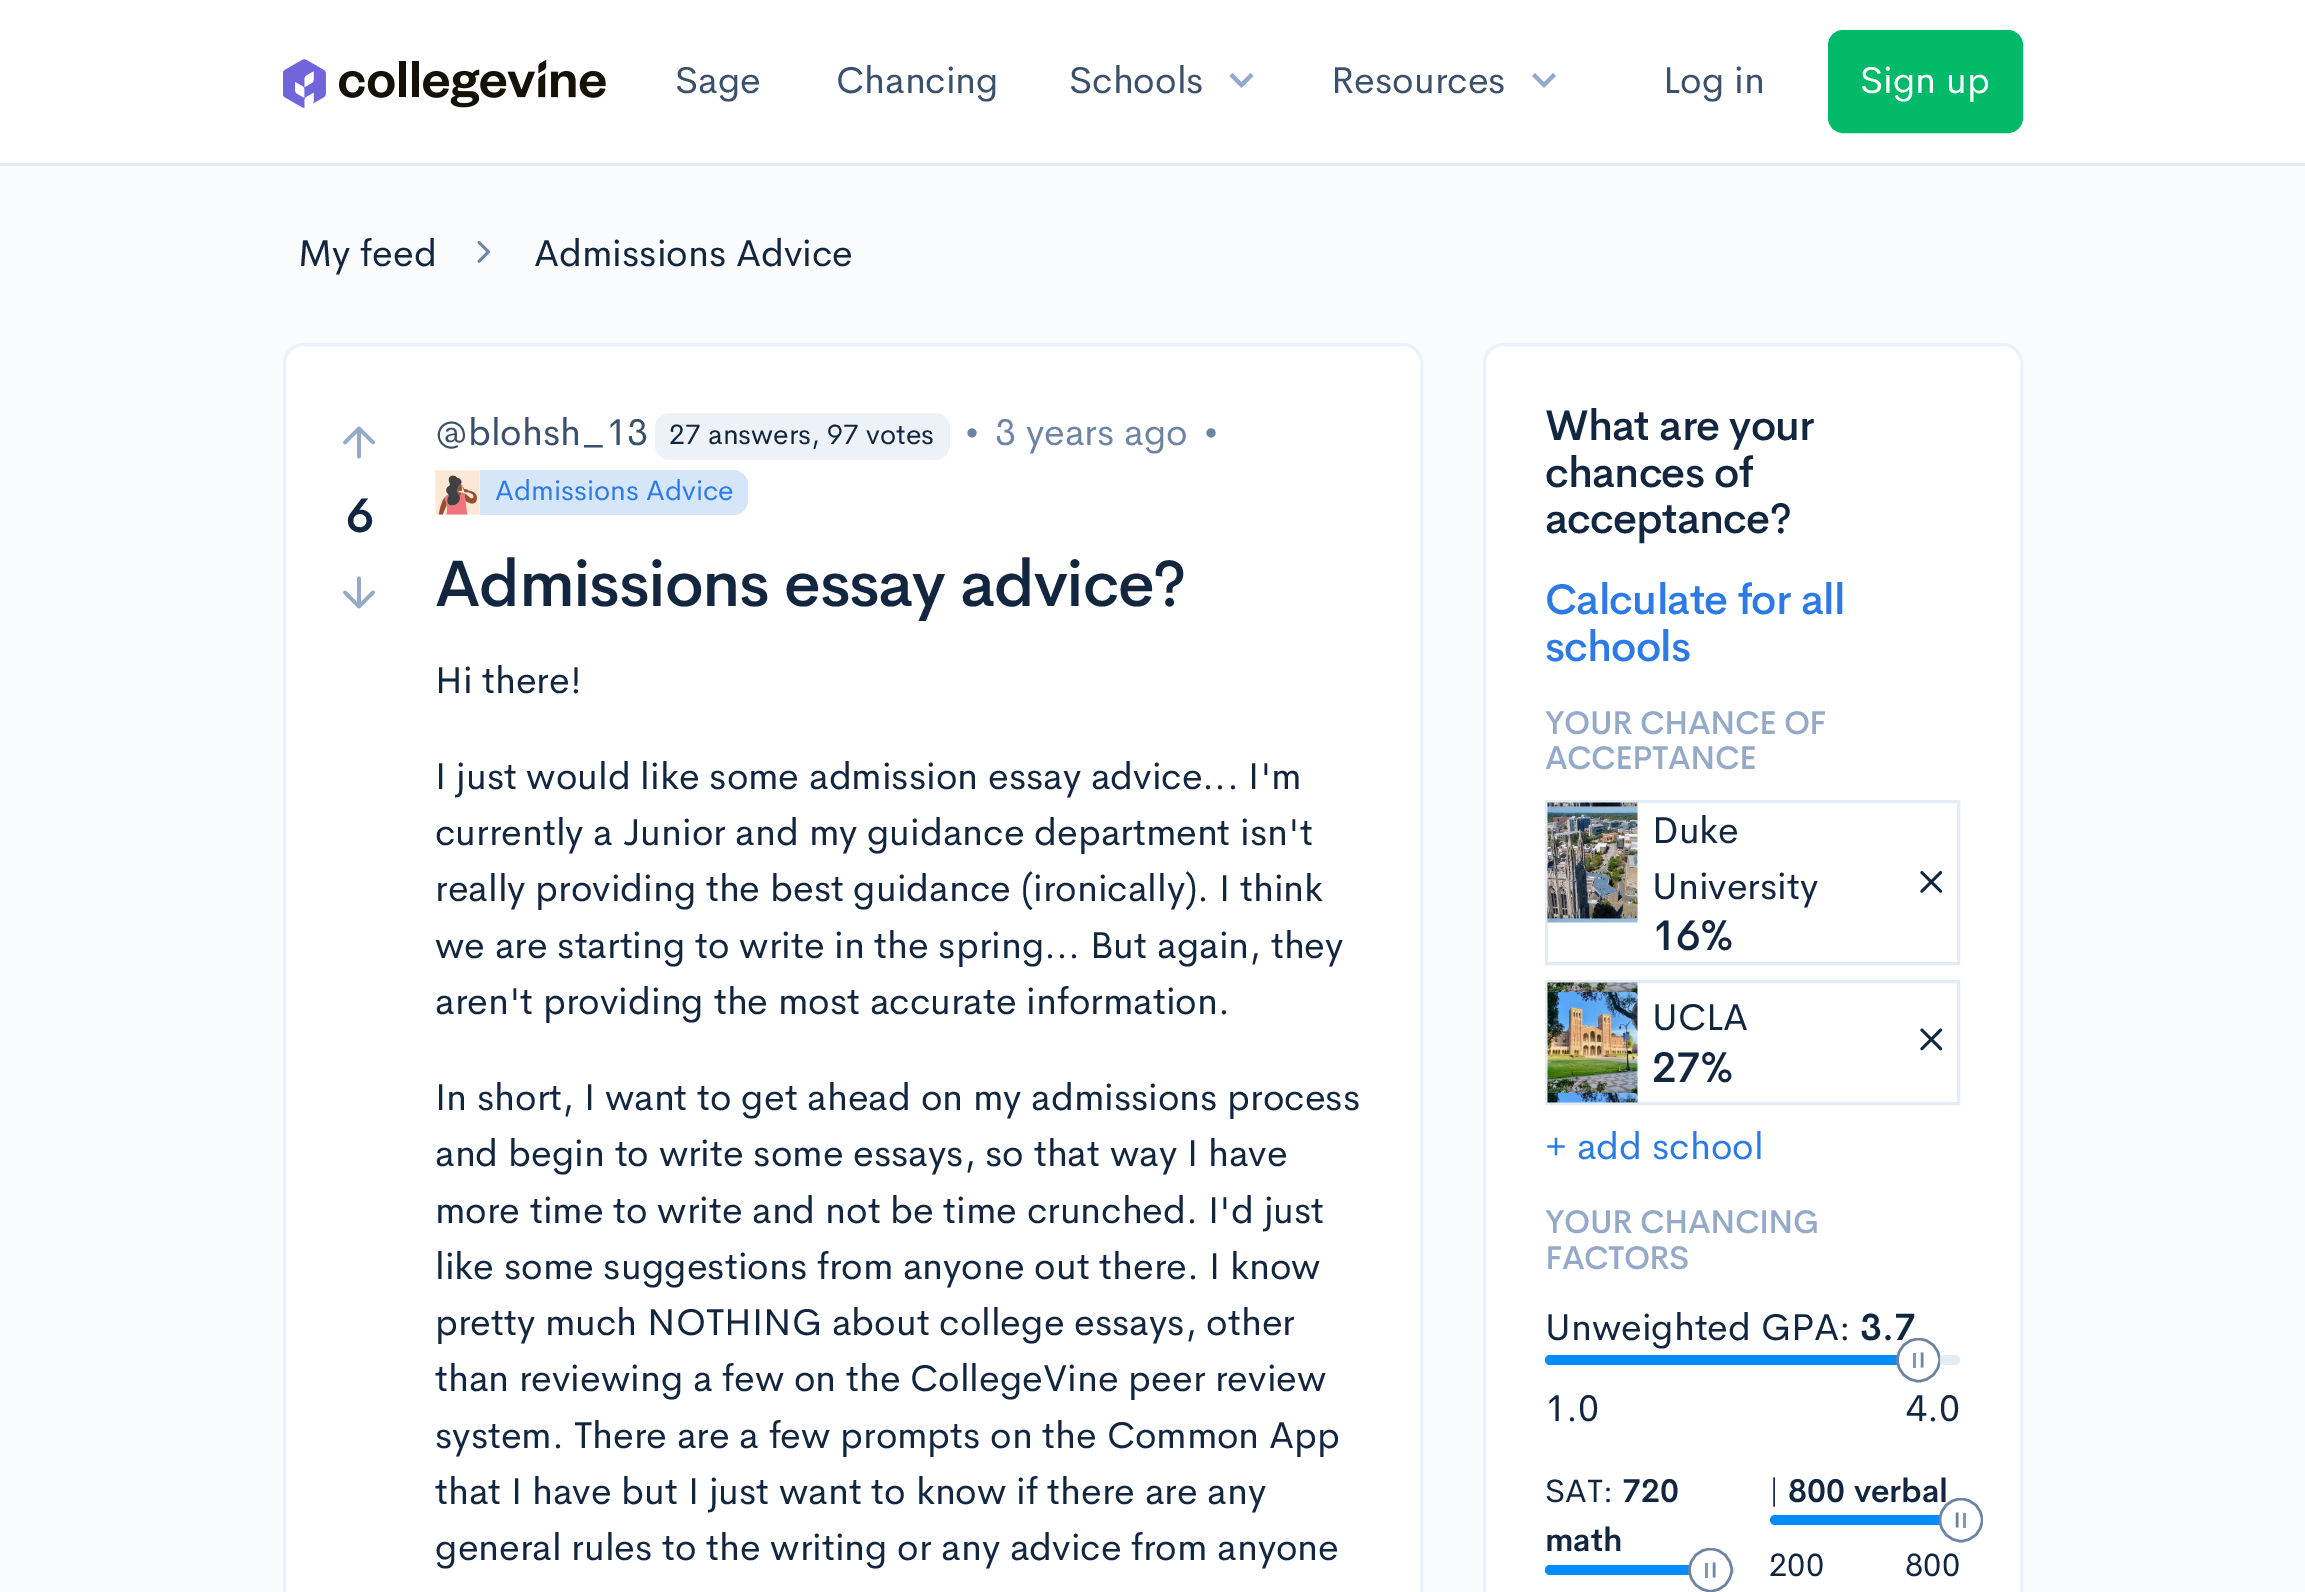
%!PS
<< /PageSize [2305 1592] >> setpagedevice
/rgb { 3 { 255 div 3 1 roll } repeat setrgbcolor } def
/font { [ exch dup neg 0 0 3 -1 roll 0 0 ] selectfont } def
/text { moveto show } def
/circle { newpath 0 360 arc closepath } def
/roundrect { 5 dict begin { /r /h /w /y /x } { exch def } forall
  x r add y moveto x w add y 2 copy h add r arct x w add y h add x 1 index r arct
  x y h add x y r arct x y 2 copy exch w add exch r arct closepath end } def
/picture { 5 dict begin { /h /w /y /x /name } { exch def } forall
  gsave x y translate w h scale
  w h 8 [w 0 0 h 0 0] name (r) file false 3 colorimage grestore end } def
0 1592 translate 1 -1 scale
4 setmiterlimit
249 251 253 rgb
0 0 2305 1592 rectfill
255 255 255 rgb
0 0 2305 163 rectfill
227 235 246 rgb
0 163 2305 3 rectfill
(img_01.rgb) 283 59 323 49 picture
149 170 201 rgb
1241.5 88 moveto -12 -12 rlineto 3 -3 rlineto 9 9 rlineto 9 -9 rlineto 3 3 rlineto closepath fill
1544 88 moveto -12 -12 rlineto 3 -3 rlineto 9 9 rlineto 9 -9 rlineto 3 3 rlineto closepath fill
0 186 105 rgb
1829.5 31.5 192 100 13.5 roundrect gsave fill grestore
3 setlinewidth
stroke
(img_02.rgb) 477 241 13 22 picture
255 255 255 rgb
284.5 344.5 1137 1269 18.5 roundrect gsave fill grestore
237 242 249 rgb
stroke
(img_03.rgb) 343 426 32 33 picture
(img_04.rgb) 343 576 32 33 picture
655 413 295 47 15 roundrect fill
213 229 250 rgb
435 470 313 45 15 roundrect fill
(img_05.rgb) 435 470 45 45 picture
255 255 255 rgb
1484.5 344.5 537 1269 18.5 roundrect gsave fill grestore
237 242 249 rgb
stroke
227 235 246 rgb
1546.5 801.5 412 162 rectstroke
(img_06.rgb) 1547 802 91 121 picture
(img_07.rgb) 1920 871 23 22 picture
1546.5 981.5 412 122 rectstroke
(img_08.rgb) 1547 982 91 121 picture
(img_09.rgb) 1920 1028 23 23 picture
0 140 253 rgb
1550 1355 moveto 368 0 rlineto 0 10 rlineto -368 0 rlineto -3 0 -5 -2 -5 -5 rcurveto 0 -3 2 -5 5 -5 rcurveto closepath fill
227 235 246 rgb
1918 1355 moveto 37 0 rlineto 3 0 5 2 5 5 rcurveto 0 3 -2 5 -5 5 rcurveto -37 0 rlineto closepath fill
0 140 253 rgb
1550 1565 moveto 160 0 rlineto 0 10 rlineto -160 0 rlineto -3 0 -5 -2 -5 -5 rcurveto 0 -3 2 -5 5 -5 rcurveto closepath fill
227 235 246 rgb
1710 1565 moveto 20 0 rlineto 3 0 5 2 5 5 rcurveto 0 3 -2 5 -5 5 rcurveto -20 0 rlineto closepath fill
255 255 255 rgb
1710.5 1570 21 circle fill
gsave
1688 1548 45 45 rectclip
110 132 163 rgb
2.5 setlinewidth
1710.5 1570 21 circle stroke
grestore
134 153 178 rgb
1705 1563 3 15 rectfill
110 132 163 rgb
2.5 setlinewidth
1714 1562.5 moveto 0 15 rlineto stroke
0 140 253 rgb
1770 1515 190 10 5 roundrect fill
/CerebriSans-Regular 37.5 font
59 80 108 rgb
(Sage) 675 93 text
(Chancing) 836 93 text
(Schools) 1069 93 text
(Resources) 1331 93 text
(Log in) 1663 93 text
255 255 255 rgb
(Sign up) 1860 93 text
18 38 63 rgb
(My feed) 298 266 text
(Admissions Advice) 534 266 text
/CerebriSans-SemiBold 48 font
(6) 346 532 text
/CerebriSans-Regular 37.5 font
59 80 108 rgb
(@blohsh_13) 435 445 text
/CerebriSans-Regular 28.1 font
18 38 63 rgb
(27 answers, 97 votes) 669 444 text
/CerebriSans-Regular 37.5 font
110 132 163 rgb
(•) 964 445 text
(3 years ago) 995 445 text
(•) 1203 445 text
/CerebriSans-Regular 28.1 font
44 123 229 rgb
(Admissions Advice) 495 500 text
/CerebriSans-Medium 65 font
18 38 63 rgb
435 606 moveto -1.3 0 (Admissions essay advice?) ashow
/CerebriSans-Regular 37.5 font
(Hi there!) 435 693 text
(I just would like some admission essay advice... I'm) 435 789 text
(currently a Junior and my guidance department isn't) 435 845 text
(really providing the best guidance \(ironically\). I think) 435 901 text
(we are starting to write in the spring... But again, they) 435 958 text
(aren't providing the most accurate information.) 435 1014 text
(In short, I want to get ahead on my admissions process) 435 1110 text
(and begin to write some essays, so that way I have) 435 1166 text
(more time to write and not be time crunched. I'd just) 435 1223 text
(like some suggestions from anyone out there. I know) 435 1279 text
(pretty much NOTHING about college essays, other) 435 1335 text
(than reviewing a few on the CollegeVine peer review) 435 1391 text
(system. There are a few prompts on the Common App) 435 1448 text
(that I have but I just want to know if there are any) 435 1504 text
(general rules to the writing or any advice from anyone) 435 1560 text
/CerebriSans-Medium 42.5 font
1545 440 moveto -0.8 0 (What are your) ashow
1545 487 moveto -0.8 0 (chances of) ashow
1545 533 moveto -0.8 0 (acceptance?) ashow
44 123 229 rgb
1545 614 moveto -0.8 0 (Calculate for all) ashow
1545 661 moveto -0.8 0 (schools) ashow
/CerebriSans-Medium 32.5 font
149 170 201 rgb
1545 734 moveto -0.6 0 (YOUR CHANCE OF) ashow
1545 769 moveto -0.6 0 (ACCEPTANCE) ashow
/CerebriSans-Regular 37.5 font
18 38 63 rgb
(Duke) 1652 843 text
(University) 1652 899 text
/CerebriSans-Medium 42.5 font
1652 950 moveto -0.8 0 (16%) ashow
/CerebriSans-Regular 37.5 font
(UCLA) 1652 1030 text
/CerebriSans-Medium 42.5 font
1652 1082 moveto -0.8 0 (27%) ashow
/CerebriSans-Regular 37.5 font
44 123 229 rgb
(+ add school) 1545 1159 text
/CerebriSans-Medium 32.5 font
149 170 201 rgb
1545 1233 moveto -0.6 0 (YOUR CHANCING) ashow
1545 1269 moveto -0.6 0 (FACTORS) ashow
/CerebriSans-Regular 37.5 font
18 38 63 rgb
(Unweighted GPA:) 1545 1340 text
/CerebriSans-SemiBold 37.5 font
(3.7) 1860 1340 text
255 255 255 rgb
1918.5 1360 21 circle fill
gsave
1895 1338 45 45 rectclip
110 132 163 rgb
1918.5 1360 21 circle stroke
grestore
134 153 178 rgb
1913 1353 3 15 rectfill
110 132 163 rgb
1922 1352.5 moveto 0 15 rlineto stroke
/CerebriSans-Regular 37.5 font
18 38 63 rgb
(1.0) 1545 1421 text
(4.0) 1906 1421 text
/CerebriSans-Regular 32.5 font
(SAT:) 1545 1502 text
/CerebriSans-SemiBold 32.5 font
(720) 1622 1502 text
(math) 1545 1551 text
/CerebriSans-Regular 32.5 font
(|) 1769 1502 text
/CerebriSans-SemiBold 32.5 font
(800 verbal) 1788 1502 text
255 255 255 rgb
1961 1520 21 circle fill
gsave
1938 1498 45 45 rectclip
110 132 163 rgb
1961 1520 21 circle stroke
grestore
110 132 163 rgb
1957 1512.5 moveto 0 15 rlineto stroke
134 153 178 rgb
1963 1513 3 15 rectfill
/CerebriSans-Regular 32.5 font
18 38 63 rgb
(200) 1769 1576 text
(800) 1905 1576 text
showpage
